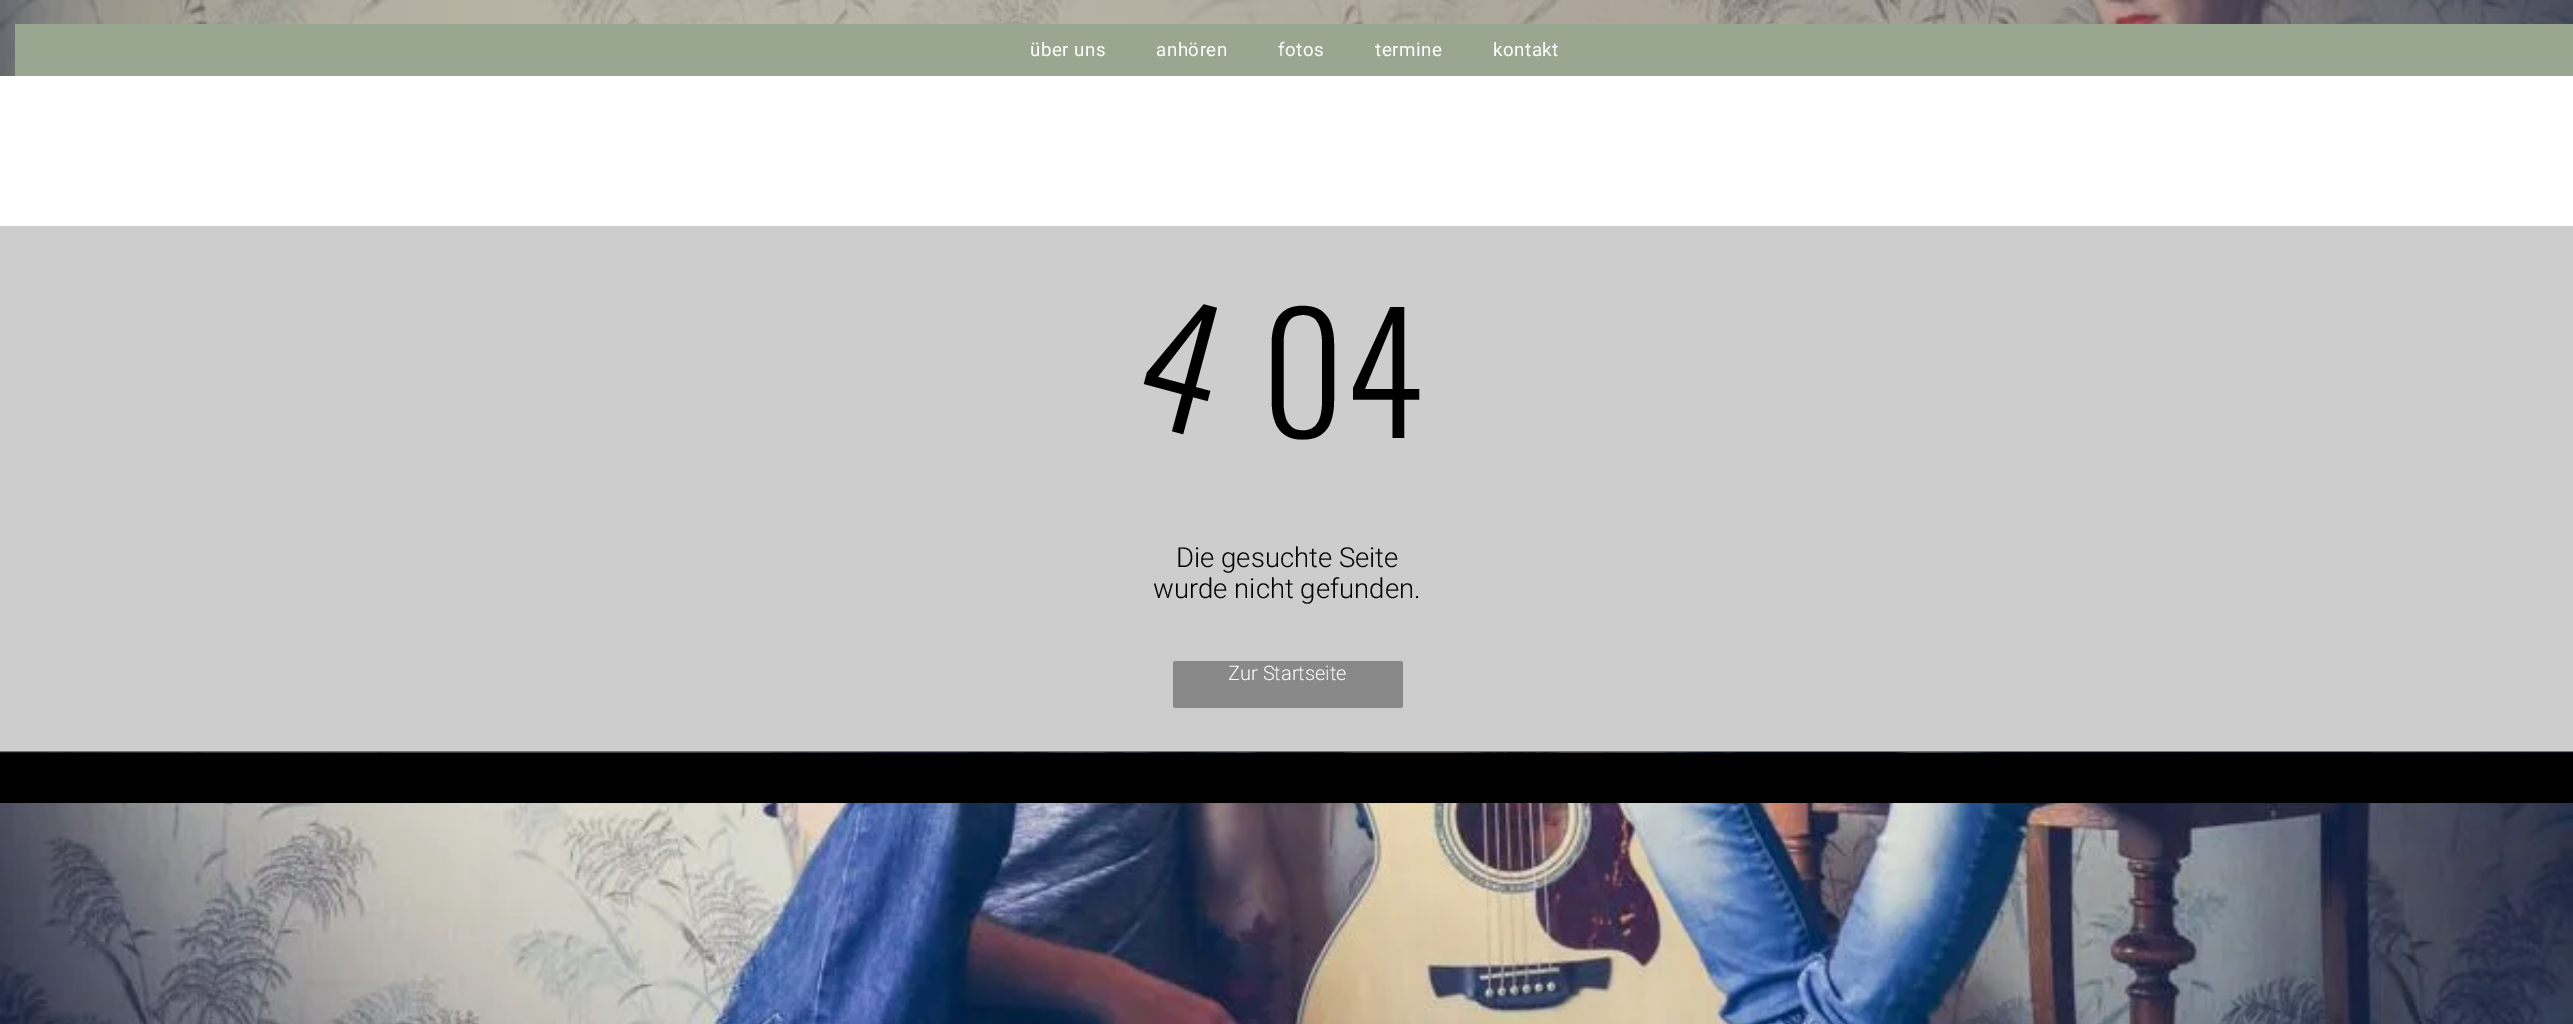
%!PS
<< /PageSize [2573 1024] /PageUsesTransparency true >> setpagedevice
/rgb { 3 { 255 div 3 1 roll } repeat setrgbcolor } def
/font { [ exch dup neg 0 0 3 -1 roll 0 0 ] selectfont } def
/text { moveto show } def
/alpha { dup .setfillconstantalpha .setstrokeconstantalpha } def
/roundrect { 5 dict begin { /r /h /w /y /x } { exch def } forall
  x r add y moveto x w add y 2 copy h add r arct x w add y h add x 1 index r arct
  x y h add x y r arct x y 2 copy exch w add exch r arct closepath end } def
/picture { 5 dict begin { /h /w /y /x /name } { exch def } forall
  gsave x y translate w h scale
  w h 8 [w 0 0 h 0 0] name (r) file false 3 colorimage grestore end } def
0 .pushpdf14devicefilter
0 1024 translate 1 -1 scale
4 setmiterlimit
255 255 255 rgb
0 0 2573 1024 rectfill
(img_01.rgb) 0 0 2573 1024 picture
0.2 alpha
225 225 225 rgb
0 0 2573 76 rectfill
0 0 0 rgb
0 0 2573 76 rectfill
1 alpha
153 167 144 rgb
15 24 2558 52 rectfill
255 255 255 rgb
0 76 2573 150 rectfill
205 205 205 rgb
0 226 2573 525 rectfill
137 137 137 rgb
1173 661 230 47 2.5 roundrect fill
0.7 alpha
0 0 0 rgb
0 752 2573 1 rectfill
1 alpha
0 753 2573 50 rectfill
111 111 111 rgb
0 751 2573 1 rectfill
/Roboto-Regular 18.75 font
255 255 255 rgb
1030 56 moveto 0.5 0 (über uns) ashow
1156 56 moveto 0.5 0 (anhören) ashow
1278 56 moveto 0.5 0 (fotos) ashow
1375 56 moveto 0.5 0 (termine) ashow
1493 56 moveto 0.5 0 (kontakt) ashow
/Oswald-Light 162 font
0 0 0 rgb
gsave 1126 419 translate 15 rotate 0 0 moveto (4) show grestore
(04) 1261 438 text
/Roboto-Light 27.5 font
(Die gesuchte Seite) 1176 567 text
(wurde nicht gefunden.) 1153 598 text
/Roboto-Light 20 font
255 255 255 rgb
(Zur Startseite) 1228 680 text
.poppdf14devicefilter showpage
